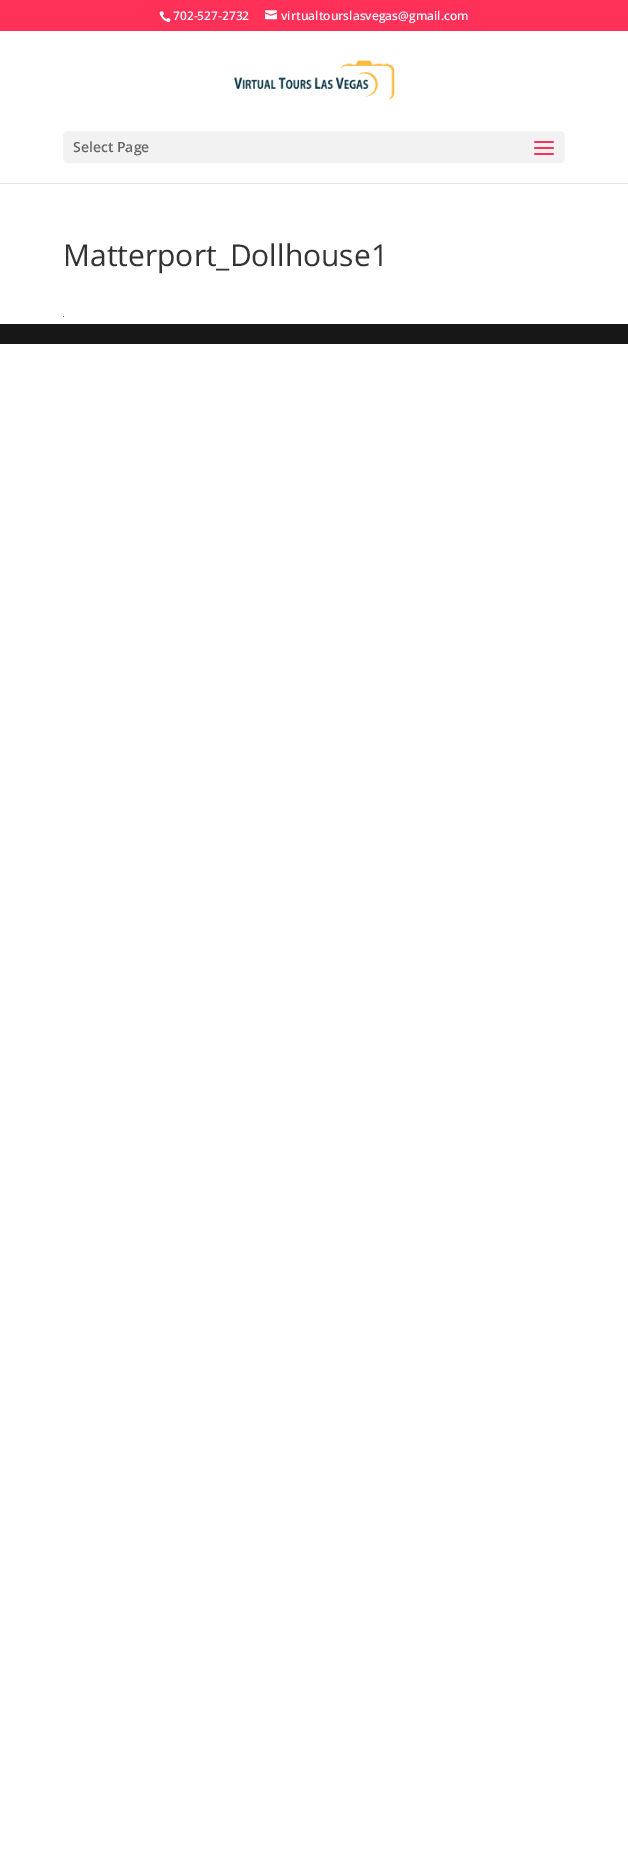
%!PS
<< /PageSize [628 1871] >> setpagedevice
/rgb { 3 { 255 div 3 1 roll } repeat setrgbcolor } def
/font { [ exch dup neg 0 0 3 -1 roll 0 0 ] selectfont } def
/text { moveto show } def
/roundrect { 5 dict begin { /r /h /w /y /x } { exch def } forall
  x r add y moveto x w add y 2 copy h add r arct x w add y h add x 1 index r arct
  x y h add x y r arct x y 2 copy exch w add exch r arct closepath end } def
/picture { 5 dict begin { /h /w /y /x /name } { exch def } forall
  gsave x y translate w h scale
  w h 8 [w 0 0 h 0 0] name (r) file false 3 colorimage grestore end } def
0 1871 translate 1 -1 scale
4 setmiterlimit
255 255 255 rgb
0 0 628 1871 rectfill
255 49 88 rgb
0 0 628 31 rectfill
(img_01.rgb) 159 11 12 12 picture
(img_02.rgb) 265 10 12 10 picture
230 230 230 rgb
0 183 628 1 rectfill
(img_03.rgb) 234 60 161 40 picture
242 242 242 rgb
63 131 502 32 5 roundrect fill
(img_04.rgb) 534 141 20 14 picture
101 94 83 rgb
63 316 1 1 rectfill
23 23 23 rgb
0 324 628 20 rectfill
/OpenSans-SemiBold 12 font
255 255 255 rgb
(702-527-2732) 173 20 text
(virtualtourslasvegas@gmail.com) 281 20 text
/OpenSans-SemiBold 14 font
102 102 102 rgb
(Select Page) 73 152 text
/OpenSans-Regular 30 font
51 51 51 rgb
(Matterport_Dollhouse1) 63 266 text
showpage
